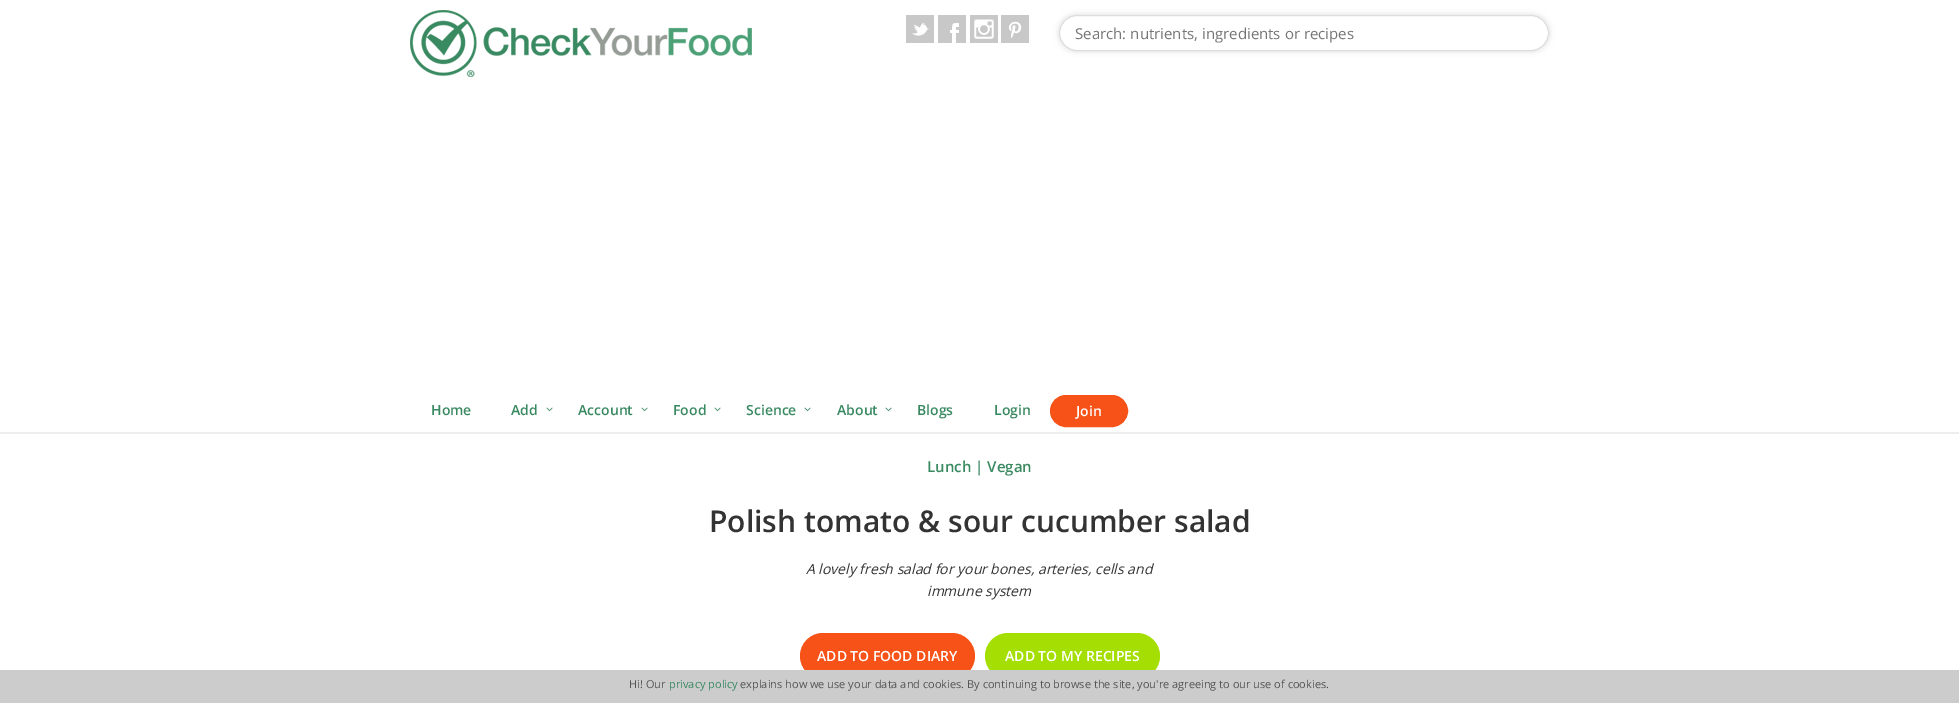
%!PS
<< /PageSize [1959 703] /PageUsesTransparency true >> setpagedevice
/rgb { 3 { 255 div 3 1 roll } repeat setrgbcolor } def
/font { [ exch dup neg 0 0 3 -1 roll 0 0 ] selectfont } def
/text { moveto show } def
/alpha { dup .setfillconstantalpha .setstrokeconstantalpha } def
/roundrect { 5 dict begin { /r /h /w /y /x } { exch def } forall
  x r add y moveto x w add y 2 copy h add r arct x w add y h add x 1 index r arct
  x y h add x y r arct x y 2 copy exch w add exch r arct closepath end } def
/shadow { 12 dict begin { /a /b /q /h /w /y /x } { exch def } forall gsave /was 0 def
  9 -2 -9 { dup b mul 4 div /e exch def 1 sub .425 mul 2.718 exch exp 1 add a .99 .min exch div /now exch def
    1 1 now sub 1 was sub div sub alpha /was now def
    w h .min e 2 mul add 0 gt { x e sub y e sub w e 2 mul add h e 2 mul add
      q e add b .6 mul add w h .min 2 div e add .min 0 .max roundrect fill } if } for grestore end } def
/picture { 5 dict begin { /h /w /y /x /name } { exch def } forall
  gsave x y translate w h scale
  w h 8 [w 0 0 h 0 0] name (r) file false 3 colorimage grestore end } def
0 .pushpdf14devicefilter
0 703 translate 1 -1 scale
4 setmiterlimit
255 255 255 rgb
0 0 1959 703 rectfill
238 238 238 rgb
0 432 1959 2 rectfill
(img_01.rgb) 410 10 342 67 picture
(img_02.rgb) 906 15 28 28 picture
(img_03.rgb) 938 15 28 28 picture
(img_04.rgb) 970 15 28 28 picture
(img_05.rgb) 1001 15 28 28 picture
0 0 0 rgb
1058 14 492 38 19 2.5 0.1 shadow
255 255 255 rgb
1059.5 15.5 489 35 17.5 roundrect gsave fill grestore
221 221 221 rgb
stroke
(img_06.rgb) 546 407 7 5 picture
(img_06.rgb) 641 407 7 5 picture
(img_06.rgb) 714 407 7 5 picture
(img_06.rgb) 804 407 7 5 picture
(img_06.rgb) 885 407 7 5 picture
247 82 23 rgb
1050.5 395.5 77 31 15.5 roundrect gsave fill grestore
stroke
800 633 175 46 23 roundrect fill
165 222 3 rgb
985 633 175 46 23 roundrect fill
204 204 204 rgb
0 670 1959 33 rectfill
/OpenSans-Regular 15 font
117 117 117 rgb
(Search: nutrients, ingredients or recipes) 1075 39 text
/OpenSans-SemiBold 14 font
57 137 97 rgb
(Home) 431 415 text
(Add) 511 415 text
(Account) 578 415 text
(Food) 673 415 text
(Science) 746 415 text
(About) 837 415 text
(Blogs) 917 415 text
(Login) 994 415 text
255 255 255 rgb
(Join) 1076 416 text
/OpenSans-SemiBold 15 font
57 137 97 rgb
(Lunch | Vegan) 927 472 text
/OpenSans-SemiBold 30 font
51 51 51 rgb
(Polish tomato & sour cucumber salad) 709 532 text
/OpenSans-Italic 14 font
(A lovely fresh salad for your bones, arteries, cells and) 806 574 text
(immune system) 927 596 text
/OpenSans-SemiBold 14 font
255 255 255 rgb
(ADD TO FOOD DIARY) 817 661 text
(ADD TO MY RECIPES) 1005 661 text
/OpenSans-Regular 11 font
85 85 85 rgb
(Hi! Our) 629 688 text
57 137 97 rgb
(privacy policy) 669 688 text
85 85 85 rgb
(explains how we use your data and cookies. By continuing to browse the site, you're agreeing to our use of cookies.) 740 688 text
.poppdf14devicefilter showpage
